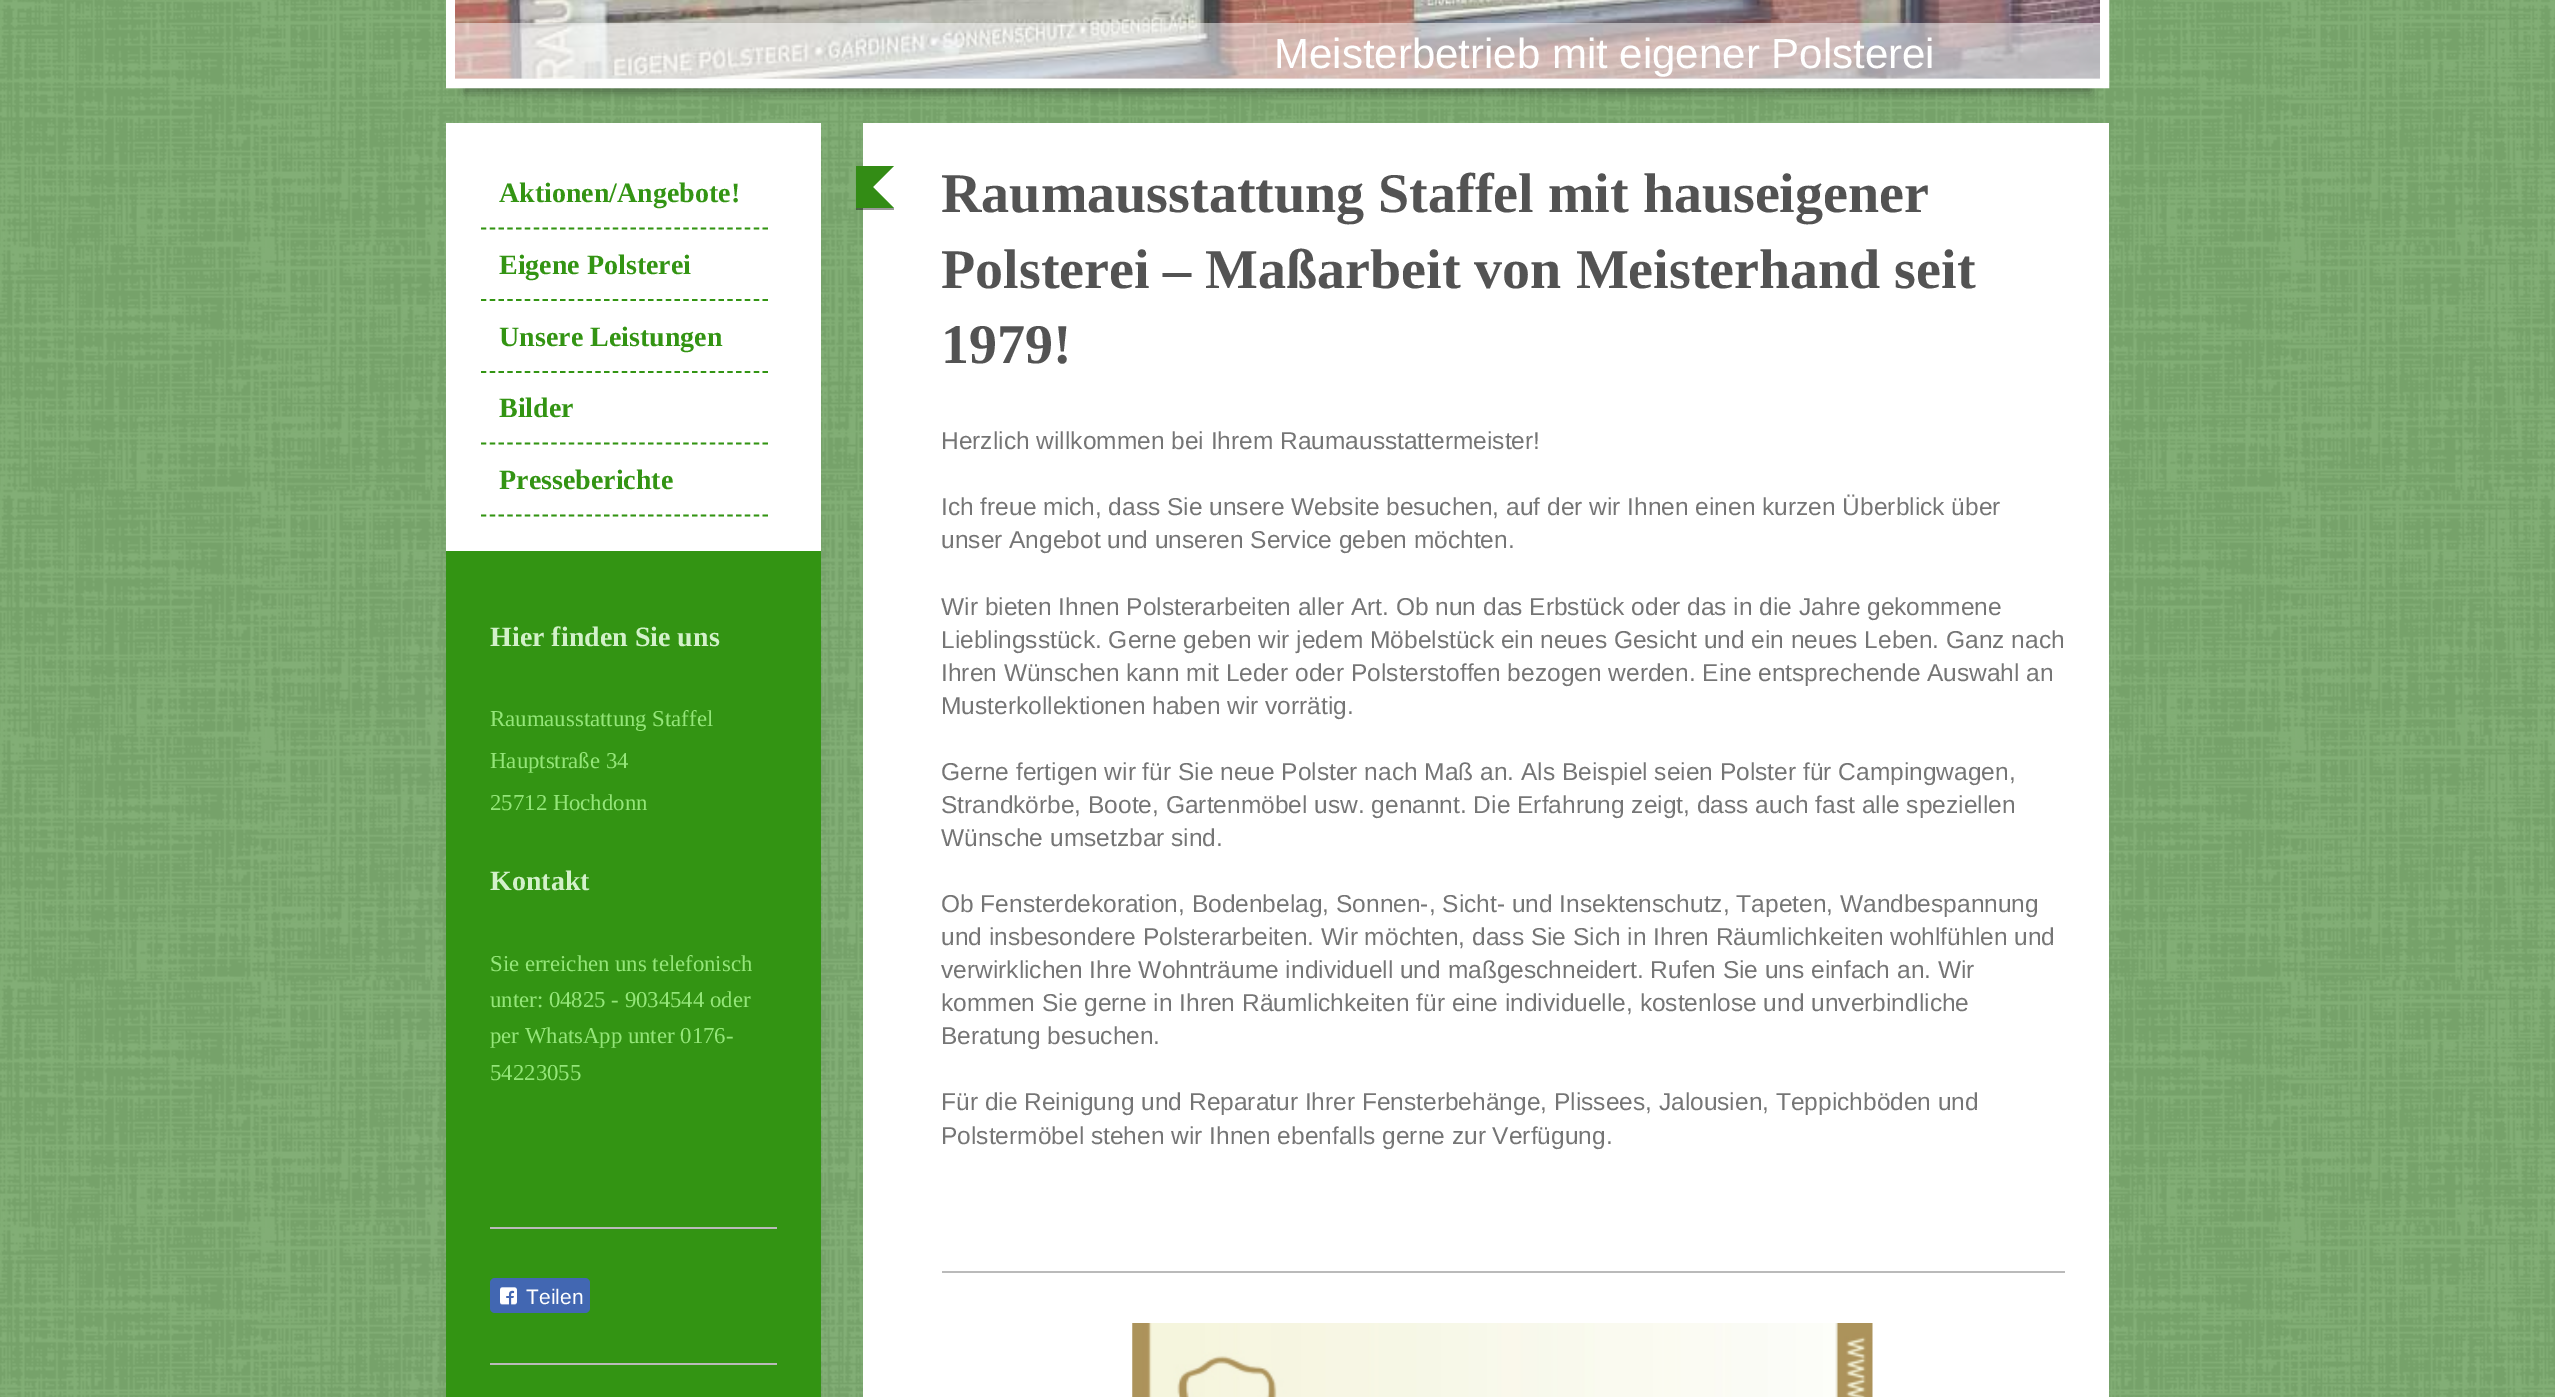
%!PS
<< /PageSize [2555 1397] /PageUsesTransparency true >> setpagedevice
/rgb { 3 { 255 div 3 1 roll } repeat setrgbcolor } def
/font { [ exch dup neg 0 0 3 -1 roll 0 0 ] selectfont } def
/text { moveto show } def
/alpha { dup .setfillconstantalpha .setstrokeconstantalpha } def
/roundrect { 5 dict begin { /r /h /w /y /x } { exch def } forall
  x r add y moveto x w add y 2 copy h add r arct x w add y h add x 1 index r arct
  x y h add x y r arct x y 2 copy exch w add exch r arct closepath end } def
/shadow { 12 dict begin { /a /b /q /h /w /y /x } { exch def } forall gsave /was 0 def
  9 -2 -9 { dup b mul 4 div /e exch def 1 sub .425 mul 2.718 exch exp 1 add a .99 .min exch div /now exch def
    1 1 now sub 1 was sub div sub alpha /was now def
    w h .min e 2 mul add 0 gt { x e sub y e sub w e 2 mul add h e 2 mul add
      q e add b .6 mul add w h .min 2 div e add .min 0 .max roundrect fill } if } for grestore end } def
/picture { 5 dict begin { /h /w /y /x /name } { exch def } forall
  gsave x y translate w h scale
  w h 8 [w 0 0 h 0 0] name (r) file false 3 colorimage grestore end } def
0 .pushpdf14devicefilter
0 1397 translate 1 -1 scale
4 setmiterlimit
145 199 130 rgb
0 0 2555 1397 rectfill
(img_01.rgb) 0 0 2555 1397 picture
0 0 0 rgb
464 -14 1627 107 0 4.5 0.3 shadow
255 255 255 rgb
9 setlinewidth
450.5 -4.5 1654 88 rectstroke
238 238 238 rgb
455 78 1645 1 rectfill
(img_02.rgb) 455 0 1645 79 picture
0.5 alpha
255 255 255 rgb
455 23 1645 56 rectfill
1 alpha
446 123 375 428 rectfill
863 123 1246 1274 rectfill
0.4 alpha
0 0 0 rgb
856 208 38 2 rectfill
1 alpha
51 140 21 rgb
856 166 moveto 38 0 rlineto -21 21 rlineto closepath 894 208 moveto -38 0 rlineto 17 -21 rlineto closepath fill
856 166 17 42 rectfill
186 186 186 rgb
942 1271 1123 2 rectfill
(img_03.rgb) 1132 1323 741 74 picture
51 148 19 rgb
1.8 setlinewidth
[5.25 3.55] 0 setdash
481 228.5 moveto 287 0 rlineto stroke
481 300 moveto 287 0 rlineto stroke
481 372 moveto 287 0 rlineto stroke
481 443.5 moveto 287 0 rlineto stroke
481 515.5 moveto 287 0 rlineto stroke
446 551 375 846 rectfill
186 186 186 rgb
490 1227 287 2 rectfill
66 103 178 rgb
490 1278 100 35 5 roundrect fill
(img_04.rgb) 500 1287 17 18 picture
186 186 186 rgb
490 1363 287 2 rectfill
/LiberationSans-Regular 42 font
255 255 255 rgb
(Meisterbetrieb mit eigener Polsterei) 1274 68 text
/LiberationSerif-Bold 56 font
83 83 83 rgb
(Raumausstattung Staffel mit hauseigener) 941 212 text
(Polsterei – Maßarbeit von Meisterhand seit) 941 288 text
(1979!) 941 363 text
/LiberationSans-Regular 24.5 font
117 117 117 rgb
(Herzlich willkommen bei Ihrem Raumausstattermeister!) 941 449 text
(Ich freue mich, dass Sie unsere Website besuchen, auf der wir Ihnen einen kurzen Überblick über) 941 515 text
(unser Angebot und unseren Service geben möchten.) 941 548 text
(Wir bieten Ihnen Polsterarbeiten aller Art. Ob nun das Erbstück oder das in die Jahre gekommene) 941 615 text
(Lieblingsstück. Gerne geben wir jedem Möbelstück ein neues Gesicht und ein neues Leben. Ganz nach) 941 648 text
(Ihren Wünschen kann mit Leder oder Polsterstoffen bezogen werden. Eine entsprechende Auswahl an) 941 681 text
(Musterkollektionen haben wir vorrätig.) 941 714 text
(Gerne fertigen wir für Sie neue Polster nach Maß an. Als Beispiel seien Polster für Campingwagen,) 941 780 text
(Strandkörbe, Boote, Gartenmöbel usw. genannt. Die Erfahrung zeigt, dass auch fast alle speziellen) 941 813 text
(Wünsche umsetzbar sind.) 941 846 text
(Ob Fensterdekoration, Bodenbelag, Sonnen-, Sicht- und Insektenschutz, Tapeten, Wandbespannung) 941 912 text
(und insbesondere Polsterarbeiten. Wir möchten, dass Sie Sich in Ihren Räumlichkeiten wohlfühlen und) 941 945 text
(verwirklichen Ihre Wohnträume individuell und maßgeschneidert. Rufen Sie uns einfach an. Wir) 941 978 text
(kommen Sie gerne in Ihren Räumlichkeiten für eine individuelle, kostenlose und unverbindliche) 941 1011 text
(Beratung besuchen.) 941 1044 text
(Für die Reinigung und Reparatur Ihrer Fensterbehänge, Plissees, Jalousien, Teppichböden und) 941 1110 text
(Polstermöbel stehen wir Ihnen ebenfalls gerne zur Verfügung.) 941 1144 text
/LiberationSerif-Bold 28 font
51 148 19 rgb
(Aktionen/Angebote!) 499 202 text
(Eigene Polsterei) 499 274 text
(Unsere Leistungen) 499 346 text
(Bilder) 499 417 text
(Presseberichte) 499 489 text
211 241 202 rgb
(Hier finden Sie uns) 490 646 text
/LiberationSerif-Regular 22.75 font
148 230 121 rgb
(Raumausstattung Staffel) 490 726 text
(Hauptstraße 34) 490 768 text
(25712 Hochdonn) 490 810 text
/LiberationSerif-Bold 28 font
211 241 202 rgb
(Kontakt) 490 890 text
/LiberationSerif-Regular 22.75 font
148 230 121 rgb
(Sie erreichen uns telefonisch) 490 971 text
(unter: 04825 - 9034544 oder) 490 1007 text
(per WhatsApp unter 0176-) 490 1043 text
(54223055) 490 1080 text
/LiberationSans-Regular 21 font
255 255 255 rgb
(Teilen) 526 1304 text
.poppdf14devicefilter showpage
